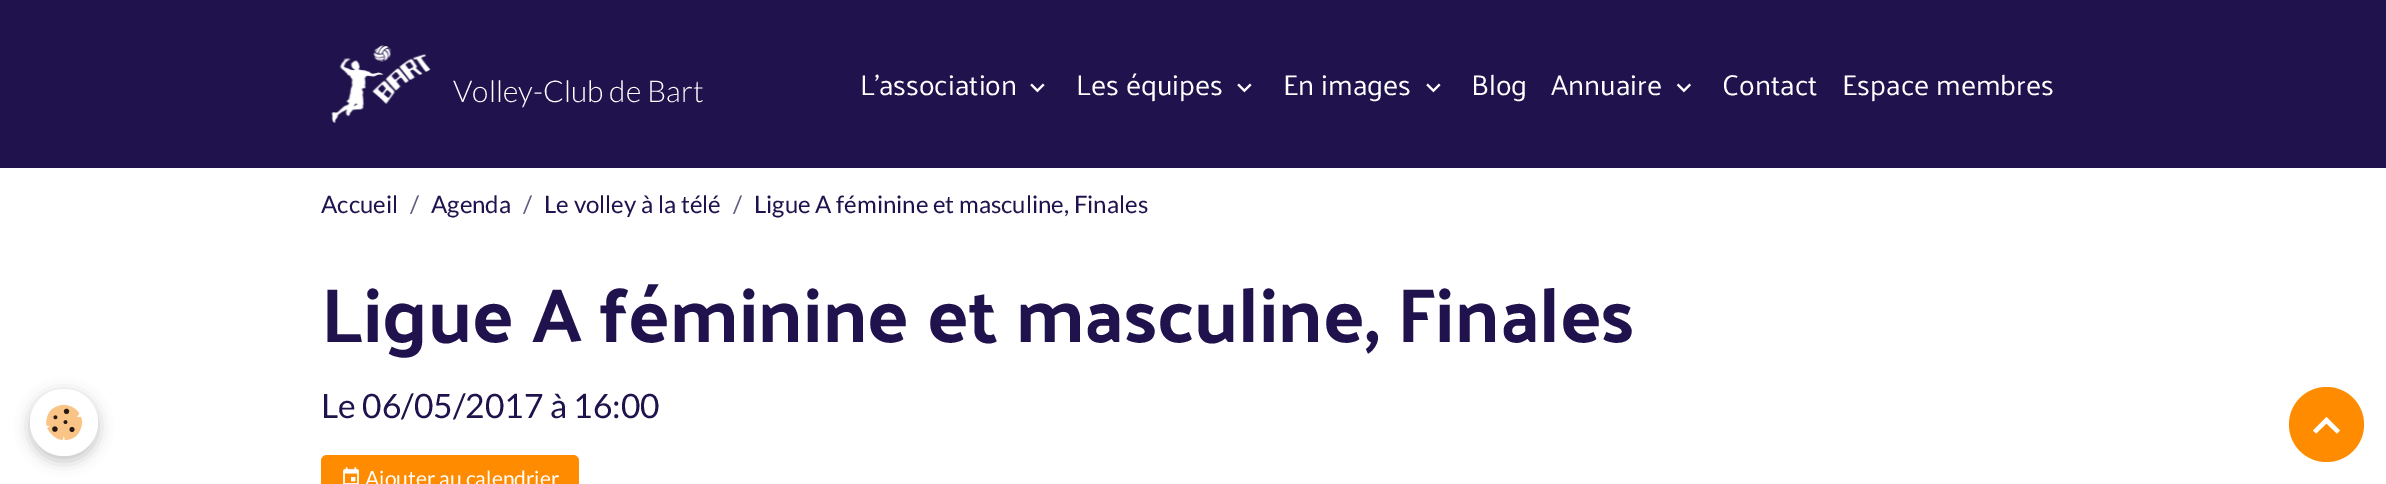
%!PS
<< /PageSize [2386 484] /PageUsesTransparency true >> setpagedevice
/rgb { 3 { 255 div 3 1 roll } repeat setrgbcolor } def
/font { [ exch dup neg 0 0 3 -1 roll 0 0 ] selectfont } def
/text { moveto show } def
/alpha { dup .setfillconstantalpha .setstrokeconstantalpha } def
/circle { newpath 0 360 arc closepath } def
/roundrect { 5 dict begin { /r /h /w /y /x } { exch def } forall
  x r add y moveto x w add y 2 copy h add r arct x w add y h add x 1 index r arct
  x y h add x y r arct x y 2 copy exch w add exch r arct closepath end } def
/shadow { 12 dict begin { /a /b /q /h /w /y /x } { exch def } forall gsave /was 0 def
  9 -2 -9 { dup b mul 4 div /e exch def 1 sub .425 mul 2.718 exch exp 1 add a .99 .min exch div /now exch def
    1 1 now sub 1 was sub div sub alpha /was now def
    w h .min e 2 mul add 0 gt { x e sub y e sub w e 2 mul add h e 2 mul add
      q e add b .6 mul add w h .min 2 div e add .min 0 .max roundrect fill } if } for grestore end } def
/picture { 5 dict begin { /h /w /y /x /name } { exch def } forall
  gsave x y translate w h scale
  w h 8 [w 0 0 h 0 0] name (r) file false 3 colorimage grestore end } def
0 .pushpdf14devicefilter
0 484 translate 1 -1 scale
4 setmiterlimit
255 255 255 rgb
0 0 2386 484 rectfill
32 18 77 rgb
0 0 2386 168 rectfill
(img_01.rgb) 331 45 100 78 picture
(img_02.rgb) 1030 83 15 10 picture
(img_02.rgb) 1237 83 15 10 picture
(img_02.rgb) 1426 83 15 10 picture
(img_03.rgb) 1676 83 15 10 picture
0 0 0 rgb
30 393 68 68 34 7.5 0.24 shadow
255 255 255 rgb
30 389 68 67 33.5 roundrect fill
(img_04.rgb) 46 404 37 36 picture
255 140 0 rgb
321 455 258 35 6 roundrect fill
(img_05.rgb) 343 467 16 17 picture
2326.5 424.5 37.5 circle fill
255 255 255 rgb
2326.5 417 moveto 13.5 13.5 rlineto -3 3 rlineto -10.5 -10 rlineto -10.5 10 rlineto -3 -3 rlineto closepath fill
/Lato-Light 30 font
(Volley-Club de Bart) 453 102 text
/Palanquin-Regular 28.75 font
(L'association) 860 95 text
(Les équipes) 1076 95 text
(En images) 1283 95 text
(Blog) 1471 95 text
(Annuaire) 1551 95 text
(Contact) 1722 95 text
(Espace membres) 1842 95 text
/Lato-Regular 24 font
32 18 77 rgb
(Accueil) 321 213 text
99 89 130 rgb
(/) 410 213 text
32 18 77 rgb
(Agenda) 431 213 text
99 89 130 rgb
(/) 523 213 text
32 18 77 rgb
(Le volley à la télé) 544 213 text
99 89 130 rgb
(/) 733 213 text
32 18 77 rgb
(Ligue A féminine et masculine, Finales) 754 213 text
/Palanquin-Bold 76.75 font
(Ligue A féminine et masculine, Finales) 321 342 text
/Lato-Regular 33.6 font
(Le 06/05/2017 à 16:00) 321 418 text
/Lato-Regular 21 font
255 255 255 rgb
(Ajouter au calendrier) 365 486 text
.poppdf14devicefilter showpage
